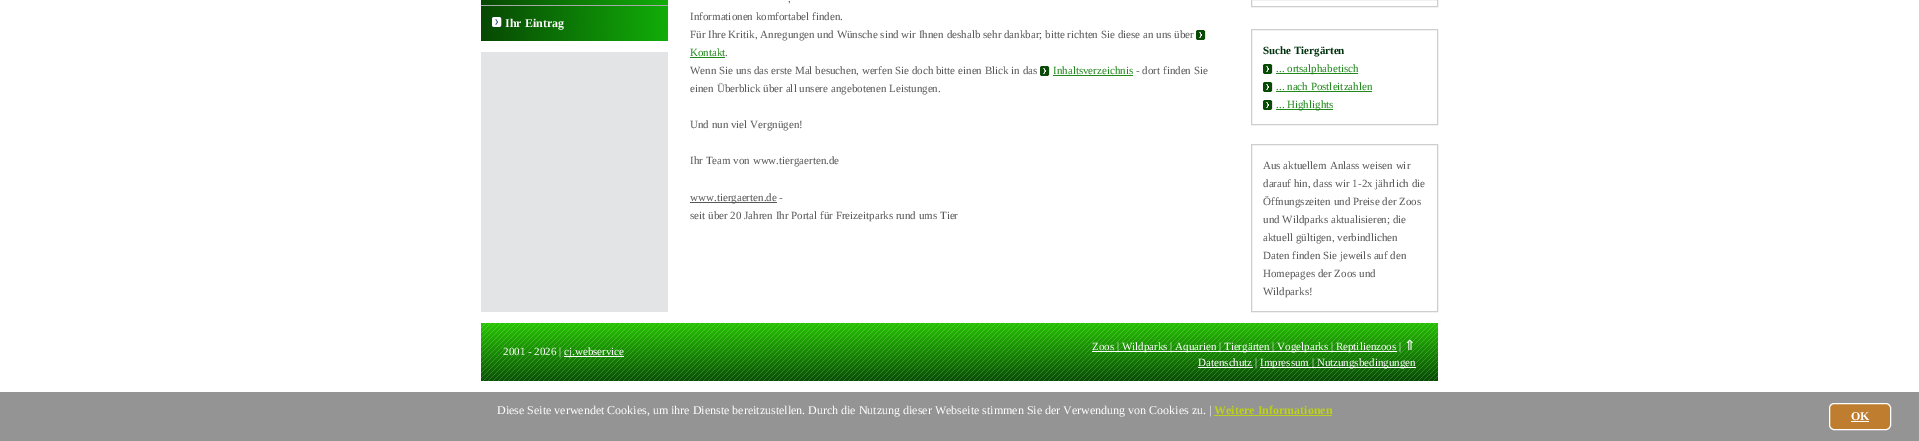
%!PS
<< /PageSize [1919 441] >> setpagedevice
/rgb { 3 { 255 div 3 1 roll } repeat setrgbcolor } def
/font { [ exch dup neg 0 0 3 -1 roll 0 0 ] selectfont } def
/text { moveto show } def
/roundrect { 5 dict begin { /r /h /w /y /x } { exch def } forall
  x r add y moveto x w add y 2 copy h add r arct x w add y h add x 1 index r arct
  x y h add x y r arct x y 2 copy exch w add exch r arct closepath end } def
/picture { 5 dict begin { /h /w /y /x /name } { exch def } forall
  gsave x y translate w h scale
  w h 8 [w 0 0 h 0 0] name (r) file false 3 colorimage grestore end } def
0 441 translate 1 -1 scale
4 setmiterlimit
255 255 255 rgb
0 0 1919 441 rectfill
227 228 229 rgb
481 52 187 260 rectfill
(img_01.rgb) 481 0 187 5 picture
167 168 170 rgb
481 5 187 1 rectfill
(img_02.rgb) 481 6 187 35 picture
(img_03.rgb) 492 17 10 10 picture
(img_04.rgb) 1196 30 10 10 picture
33 136 28 rgb
690 57 35 1 rectfill
(img_04.rgb) 1040 66 10 10 picture
1053 75 80 1 rectfill
88 88 90 rgb
690 202 87 1 rectfill
205 206 207 rgb
1251.5 -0.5 186 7 rectstroke
1251.5 29.5 186 95 rectstroke
(img_04.rgb) 1263 64 10 10 picture
33 136 28 rgb
1276 73 82 1 rectfill
(img_04.rgb) 1263 82 10 10 picture
1276 91 96 1 rectfill
(img_04.rgb) 1263 100 10 10 picture
1276 109 57 1 rectfill
205 206 207 rgb
1251.5 144.5 186 167 rectstroke
(img_05.rgb) 481 323 957 58 picture
255 255 255 rgb
564 356 60 1 rectfill
1092 351 305 1 rectfill
1198 367 55 1 rectfill
1260 367 156 1 rectfill
148 148 148 rgb
0 392 1919 49 rectfill
188 210 26 rgb
1214 415 118 1 rectfill
191 125 48 rgb
1829.5 403.5 61 26 4.5 roundrect gsave fill grestore
255 255 255 rgb
stroke
1851 421 18 1 rectfill
/LiberationSerif-Bold 12 font
(Ihr Eintrag) 505 27 text
/LiberationSerif-Regular 11 font
88 88 90 rgb
(,) 788 2 text
(Informationen komfortabel finden.) 690 20 text
(Für Ihre Kritik, Anregungen und Wünsche sind wir Ihnen deshalb sehr dankbar; bitte richten Sie diese an uns über) 690 38 text
33 136 28 rgb
(Kontakt) 690 56 text
88 88 90 rgb
(.) 725 56 text
(Wenn Sie uns das erste Mal besuchen, werfen Sie doch bitte einen Blick in das) 690 74 text
33 136 28 rgb
(Inhaltsverzeichnis) 1053 74 text
88 88 90 rgb
(- dort finden Sie) 1136 74 text
(einen Überblick über all unsere angebotenen Leistungen.) 690 92 text
(Und nun viel Vergnügen!) 690 128 text
(Ihr Team von www.tiergaerten.de) 690 164 text
(www.tiergaerten.de -) 690 201 text
(seit über 20 Jahren Ihr Portal für Freizeitparks rund ums Tier) 690 219 text
/LiberationSerif-Bold 11 font
0 50 14 rgb
(Suche Tiergärten) 1263 54 text
/LiberationSerif-Regular 11 font
33 136 28 rgb
(... ortsalphabetisch) 1276 72 text
(... nach Postleitzahlen) 1276 90 text
(... Highlights) 1276 108 text
88 88 90 rgb
(Aus aktuellem Anlass weisen wir) 1263 169 text
(darauf hin, dass wir 1-2x jährlich die) 1263 187 text
(Öffnungszeiten und Preise der Zoos) 1263 205 text
(und Wildparks aktualisieren; die) 1263 223 text
(aktuell gültigen, verbindlichen) 1263 241 text
(Daten finden Sie jeweils auf den) 1263 259 text
(Homepages der Zoos und) 1263 277 text
(Wildparks!) 1263 295 text
255 255 255 rgb
(2001 - 2026 |) 503 355 text
(cj.webservice) 564 355 text
(Zoos | Wildparks | Aquarien | Tiergärten | Vogelparks | Reptilienzoos |) 1092 350 text
/DejaVuSans-Regular 14 font
(⇑) 1404 350 text
/LiberationSerif-Regular 11 font
(Datenschutz |) 1198 366 text
(Impressum | Nutzungsbedingungen) 1260 366 text
/LiberationSerif-Regular 12 font
(Diese Seite verwendet Cookies, um ihre Dienste bereitzustellen. Durch die Nutzung dieser Webseite stimmen Sie der Verwendung von Cookies zu. |) 497 414 text
/LiberationSerif-Bold 12 font
188 210 26 rgb
(Weitere Informationen) 1214 414 text
255 255 255 rgb
(OK) 1851 420 text
showpage
